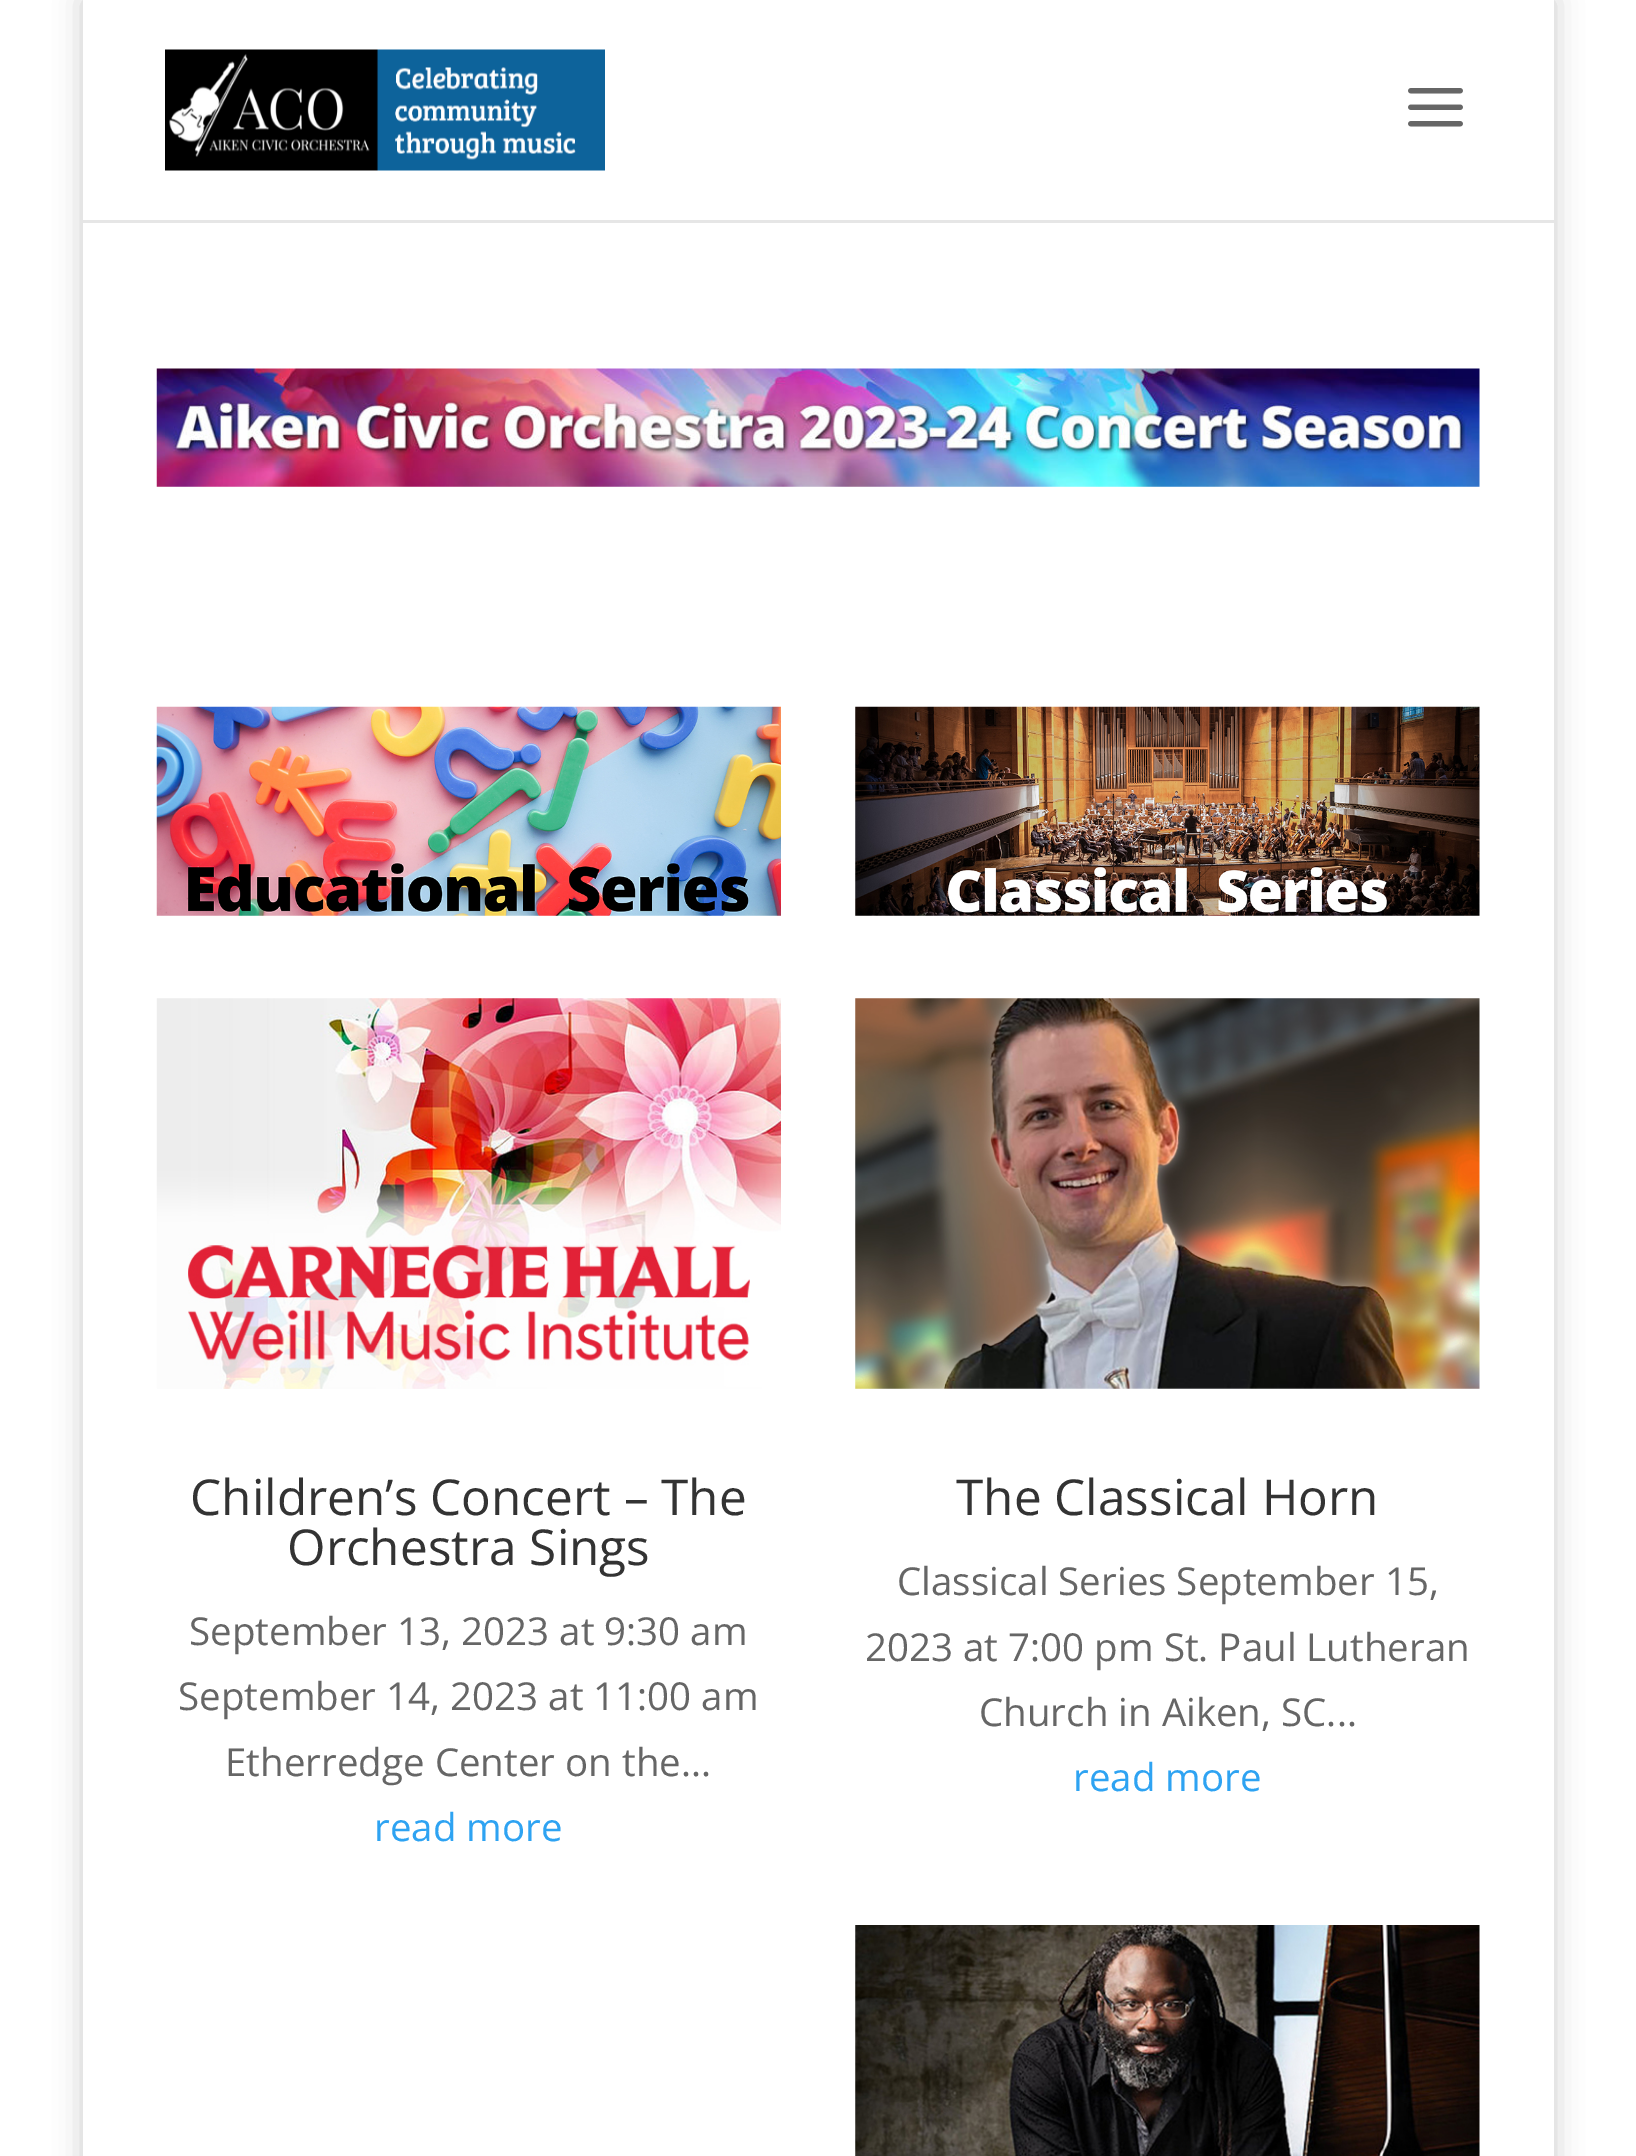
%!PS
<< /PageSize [1636 2156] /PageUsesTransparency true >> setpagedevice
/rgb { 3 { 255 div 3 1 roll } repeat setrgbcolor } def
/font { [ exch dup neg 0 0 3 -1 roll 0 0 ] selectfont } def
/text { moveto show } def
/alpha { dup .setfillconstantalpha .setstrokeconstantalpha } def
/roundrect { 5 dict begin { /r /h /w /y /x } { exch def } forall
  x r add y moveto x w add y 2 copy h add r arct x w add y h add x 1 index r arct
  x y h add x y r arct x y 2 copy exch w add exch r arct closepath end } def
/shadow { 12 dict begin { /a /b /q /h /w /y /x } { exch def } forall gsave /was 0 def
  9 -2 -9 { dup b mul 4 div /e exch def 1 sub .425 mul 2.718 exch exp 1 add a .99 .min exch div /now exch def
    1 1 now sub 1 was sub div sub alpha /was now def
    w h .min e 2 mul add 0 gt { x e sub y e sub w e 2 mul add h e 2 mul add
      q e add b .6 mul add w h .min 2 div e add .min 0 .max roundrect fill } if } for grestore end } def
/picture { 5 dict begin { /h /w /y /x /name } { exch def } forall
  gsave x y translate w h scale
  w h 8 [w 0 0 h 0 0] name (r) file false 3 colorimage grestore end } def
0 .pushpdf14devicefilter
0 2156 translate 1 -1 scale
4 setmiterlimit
255 255 255 rgb
0 0 1636 2156 rectfill
0 0 0 rgb
83 0 1471 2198 0 14 0.2 shadow
230 230 230 rgb
83 220 moveto 0 3 rlineto 1471 0 rlineto 0 -220 rlineto 0 217 rlineto closepath fill
255 255 255 rgb
83 0 1471 220 rectfill
(img_01.rgb) 165 49 440 122 picture
(img_02.rgb) 1408 88 55 39 picture
83 223 1471 1933 rectfill
(img_03.rgb) 156 368 1324 119 picture
(img_04.rgb) 156 706 625 210 picture
(img_05.rgb) 156 998 625 391 picture
(img_06.rgb) 855 706 625 210 picture
(img_07.rgb) 855 998 625 391 picture
(img_08.rgb) 855 1925 625 231 picture
/OpenSans-Regular 49.5 font
51 51 51 rgb
(Children’s Concert – The) 190 1515 text
(Orchestra Sings) 287 1565 text
/OpenSans-Regular 38.5 font
102 102 102 rgb
(September 13, 2023 at 9:30 am) 189 1645 text
(September 14, 2023 at 11:00 am) 178 1710 text
(Etherredge Center on the...) 225 1776 text
46 163 242 rgb
(read more) 374 1841 text
/OpenSans-Regular 49.5 font
51 51 51 rgb
(The Classical Horn) 956 1515 text
/OpenSans-Regular 38.5 font
102 102 102 rgb
(Classical Series September 15,) 897 1595 text
(2023 at 7:00 pm St. Paul Lutheran) 865 1661 text
(Church in Aiken, SC...) 979 1726 text
46 163 242 rgb
(read more) 1073 1791 text
.poppdf14devicefilter showpage
